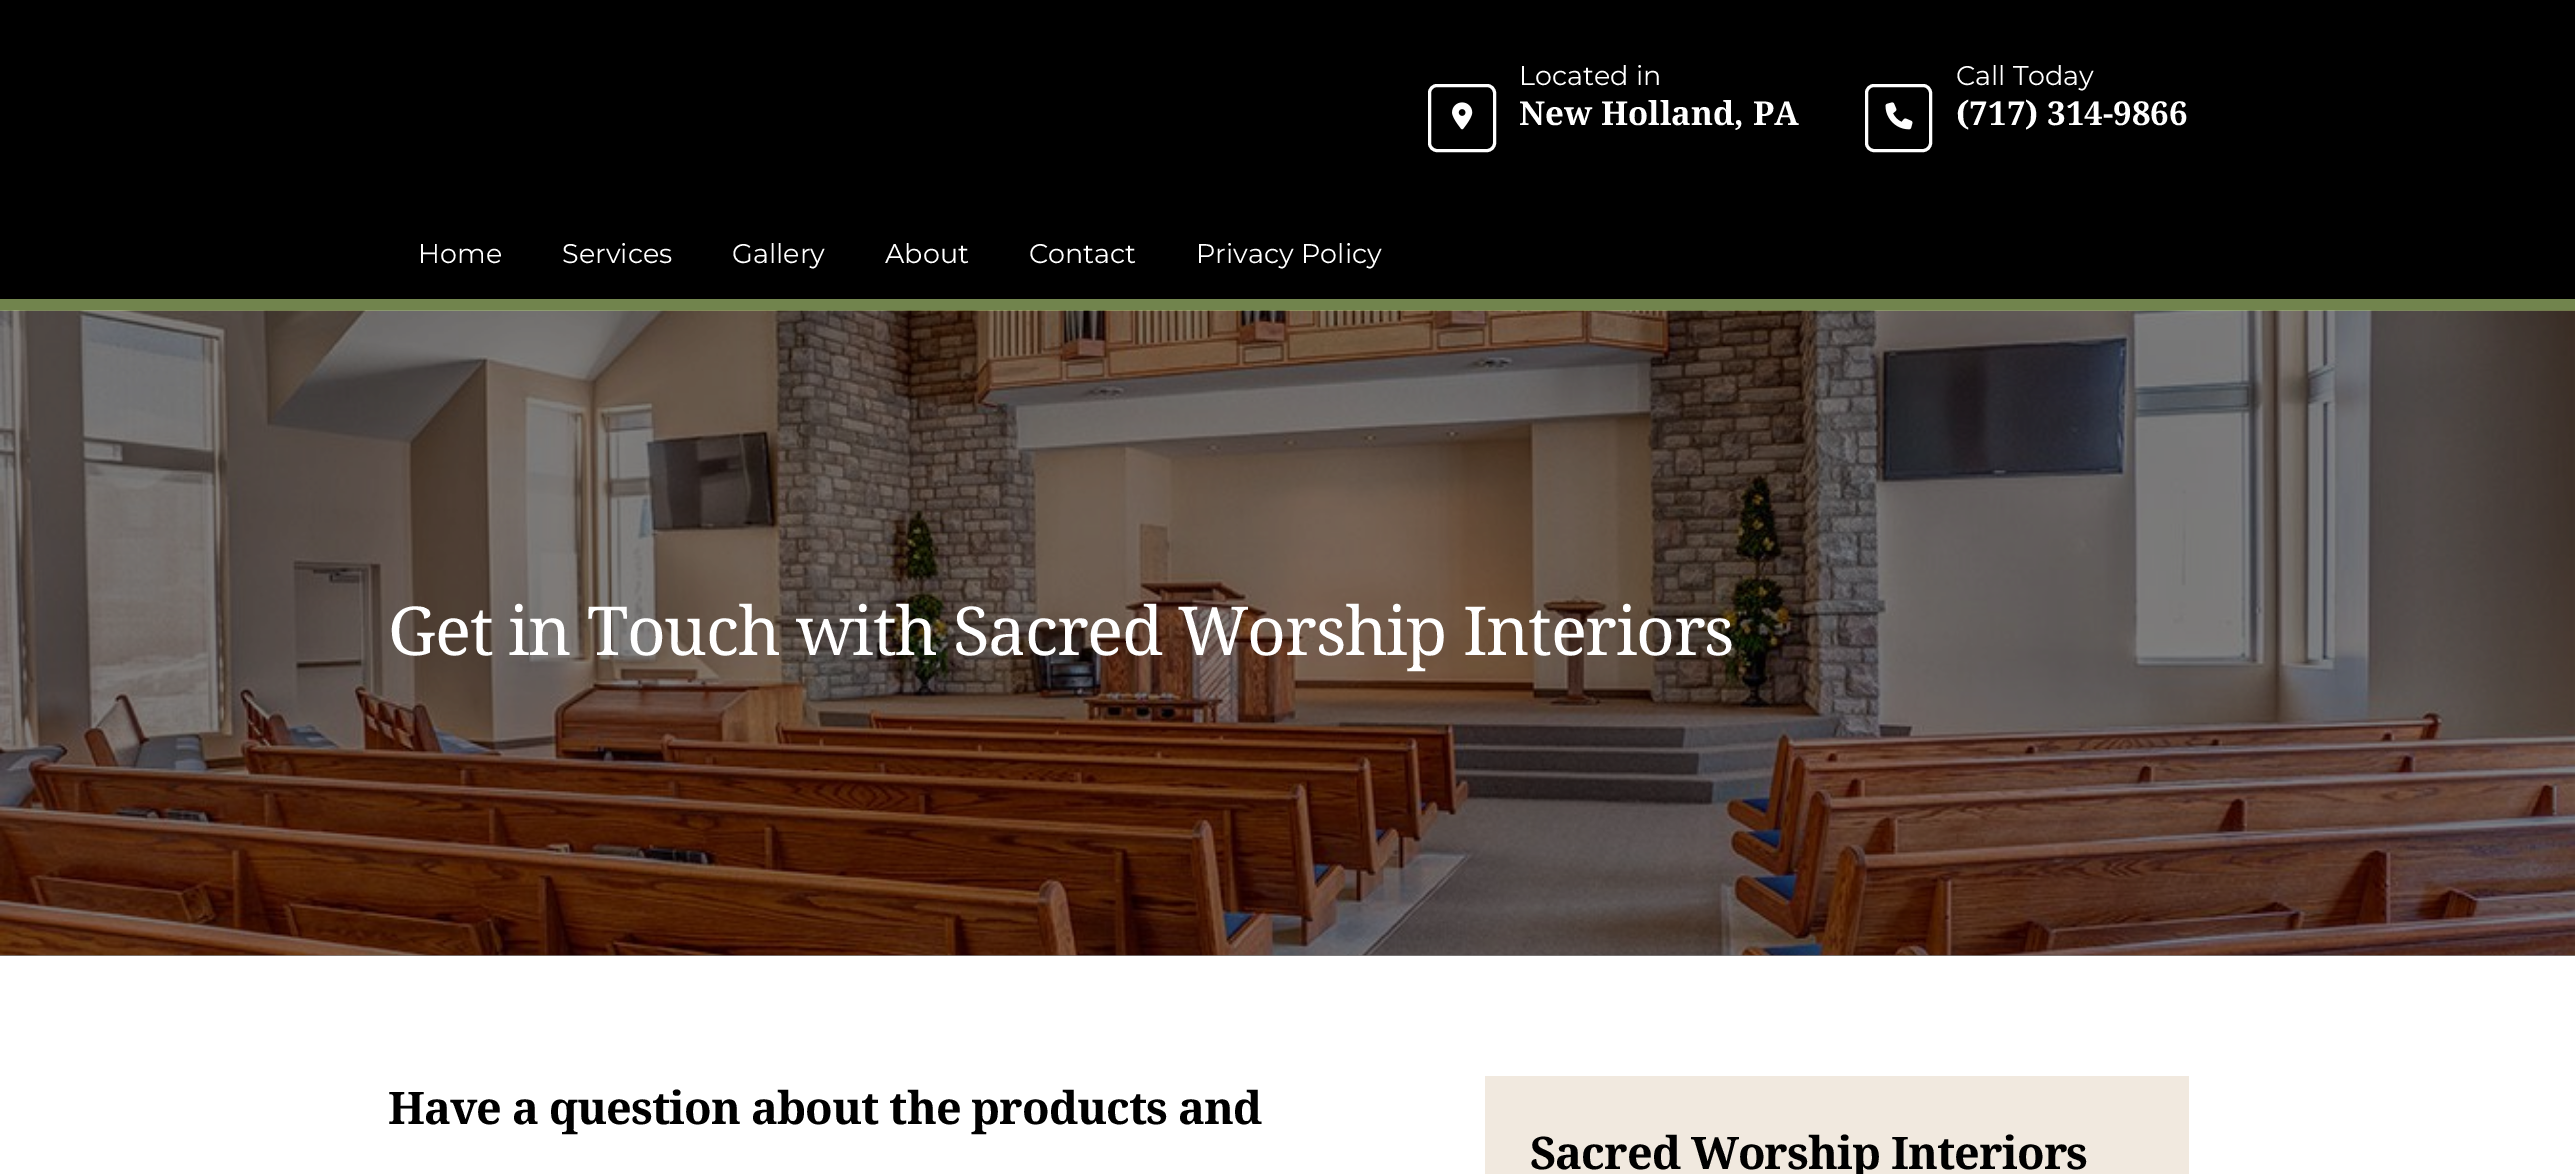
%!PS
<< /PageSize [2575 1174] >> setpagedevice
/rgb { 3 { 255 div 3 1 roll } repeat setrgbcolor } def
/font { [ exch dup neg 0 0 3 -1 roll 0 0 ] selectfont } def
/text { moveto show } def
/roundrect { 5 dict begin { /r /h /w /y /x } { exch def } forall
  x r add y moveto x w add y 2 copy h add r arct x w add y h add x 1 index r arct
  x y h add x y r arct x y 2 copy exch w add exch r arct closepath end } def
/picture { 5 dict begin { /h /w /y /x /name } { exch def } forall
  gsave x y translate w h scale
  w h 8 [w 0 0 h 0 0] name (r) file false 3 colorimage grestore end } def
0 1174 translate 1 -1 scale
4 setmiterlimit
255 255 255 rgb
0 0 2575 1174 rectfill
128 128 128 rgb
0 955 2575 1 rectfill
0 0 0 rgb
0 0 2575 299 rectfill
255 255 255 rgb
3 setlinewidth
1429.5 85.5 65 65 7.5 roundrect stroke
(img_01.rgb) 1452 102 21 28 picture
1866.5 85.5 64 65 7.5 roundrect stroke
(img_02.rgb) 1885 102 28 28 picture
113 132 77 rgb
0 299 2575 12 rectfill
(img_03.rgb) 0 310 2575 646 picture
241 233 223 rgb
1485 1076 704 98 rectfill
/Montserrat-Regular 27 font
255 255 255 rgb
(Located in) 1519 85 text
/NotoSerif-Bold 33 font
(New Holland, PA) 1519 125 text
/Montserrat-Regular 27 font
(Call Today) 1956 85 text
/NotoSerif-Bold 33 font
(\(717\) 314-9866) 1956 125 text
/Montserrat-Regular 27 font
(Home) 418 263 text
(Services) 562 263 text
(Gallery) 732 263 text
(About) 885 263 text
(Contact) 1029 263 text
(Privacy Policy) 1196 263 text
/NotoSerif-Regular 67.5 font
388 655 moveto -1.35 0 (Get in Touch with Sacred Worship Interiors) ashow
/NotoSerif-Bold 45 font
0 0 0 rgb
388 1124 moveto -0.9 0 (Have a question about the products and) ashow
1530 1169 moveto -0.9 0 (Sacred Worship Interiors) ashow
showpage
